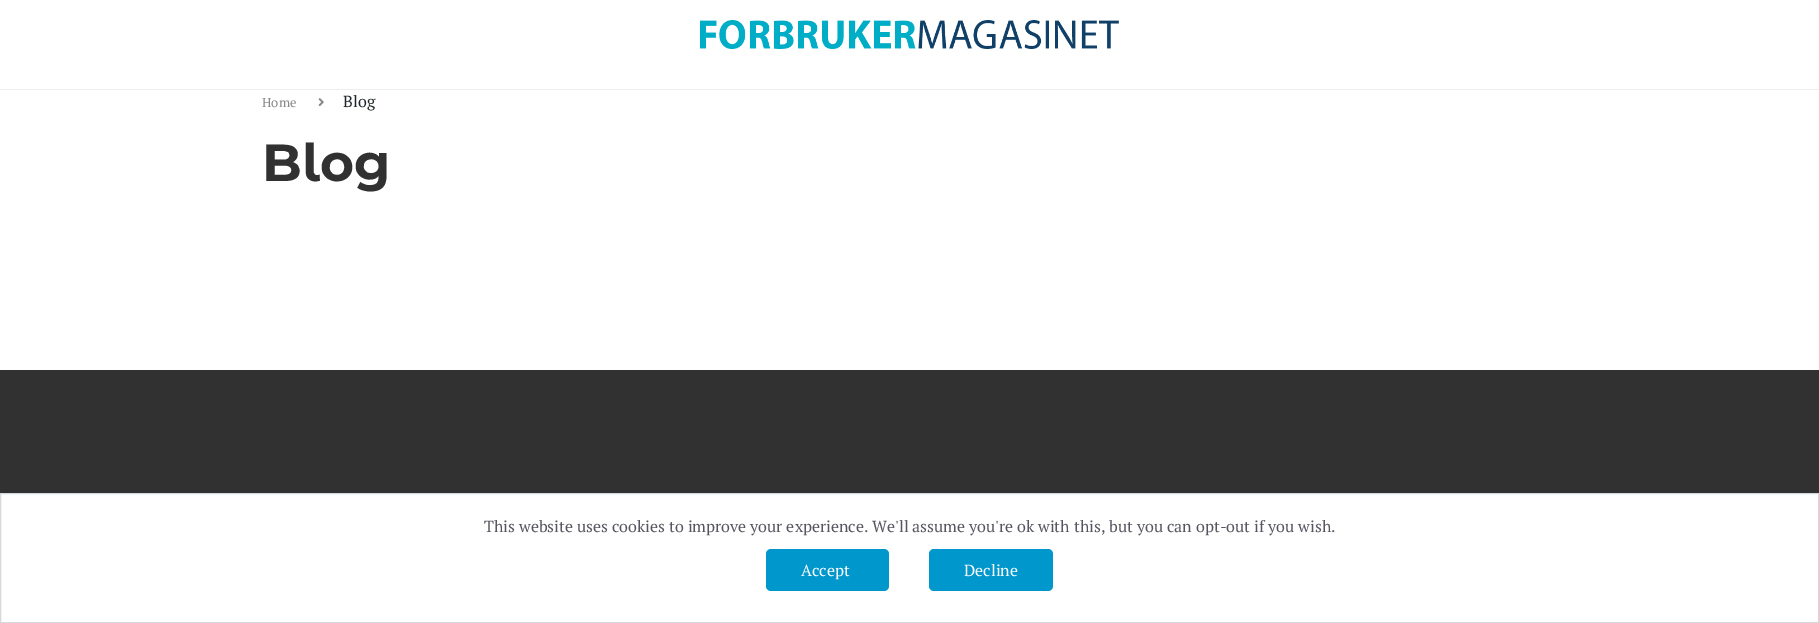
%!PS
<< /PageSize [1819 623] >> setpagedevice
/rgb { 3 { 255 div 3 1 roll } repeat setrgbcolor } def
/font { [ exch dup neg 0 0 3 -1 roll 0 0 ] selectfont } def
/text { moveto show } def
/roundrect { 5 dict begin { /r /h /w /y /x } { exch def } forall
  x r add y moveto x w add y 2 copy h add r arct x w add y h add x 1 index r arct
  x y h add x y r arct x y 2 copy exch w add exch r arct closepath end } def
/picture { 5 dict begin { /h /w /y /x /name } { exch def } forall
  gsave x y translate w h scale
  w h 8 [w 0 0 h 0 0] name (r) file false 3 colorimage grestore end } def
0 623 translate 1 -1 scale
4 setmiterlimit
255 255 255 rgb
0 0 1819 623 rectfill
237 237 237 rgb
0 89 1819 1 rectfill
(img_01.rgb) 700 20 419 29 picture
(img_02.rgb) 318 98 6 9 picture
212 216 223 rgb
0.5 493.5 1818 129 rectstroke
0 151 205 rgb
766 549 123 42 5 roundrect fill
929 549 124 42 5 roundrect fill
49 49 49 rgb
0 370 1819 123 rectfill
/PTSerif-Regular 13 font
136 136 136 rgb
(Home) 262 107 text
/PTSerif-Regular 16 font
33 37 41 rgb
(Blog) 343 107 text
/MontserratAlternates-Bold 52 font
49 49 49 rgb
(Blog) 262 181 text
/PTSerif-Regular 16 font
86 86 98 rgb
(This website uses cookies to improve your experience. We'll assume you're ok with this, but you can opt-out if you wish.) 484 532 text
255 255 255 rgb
(Accept) 801 576 text
(Decline) 964 576 text
showpage
